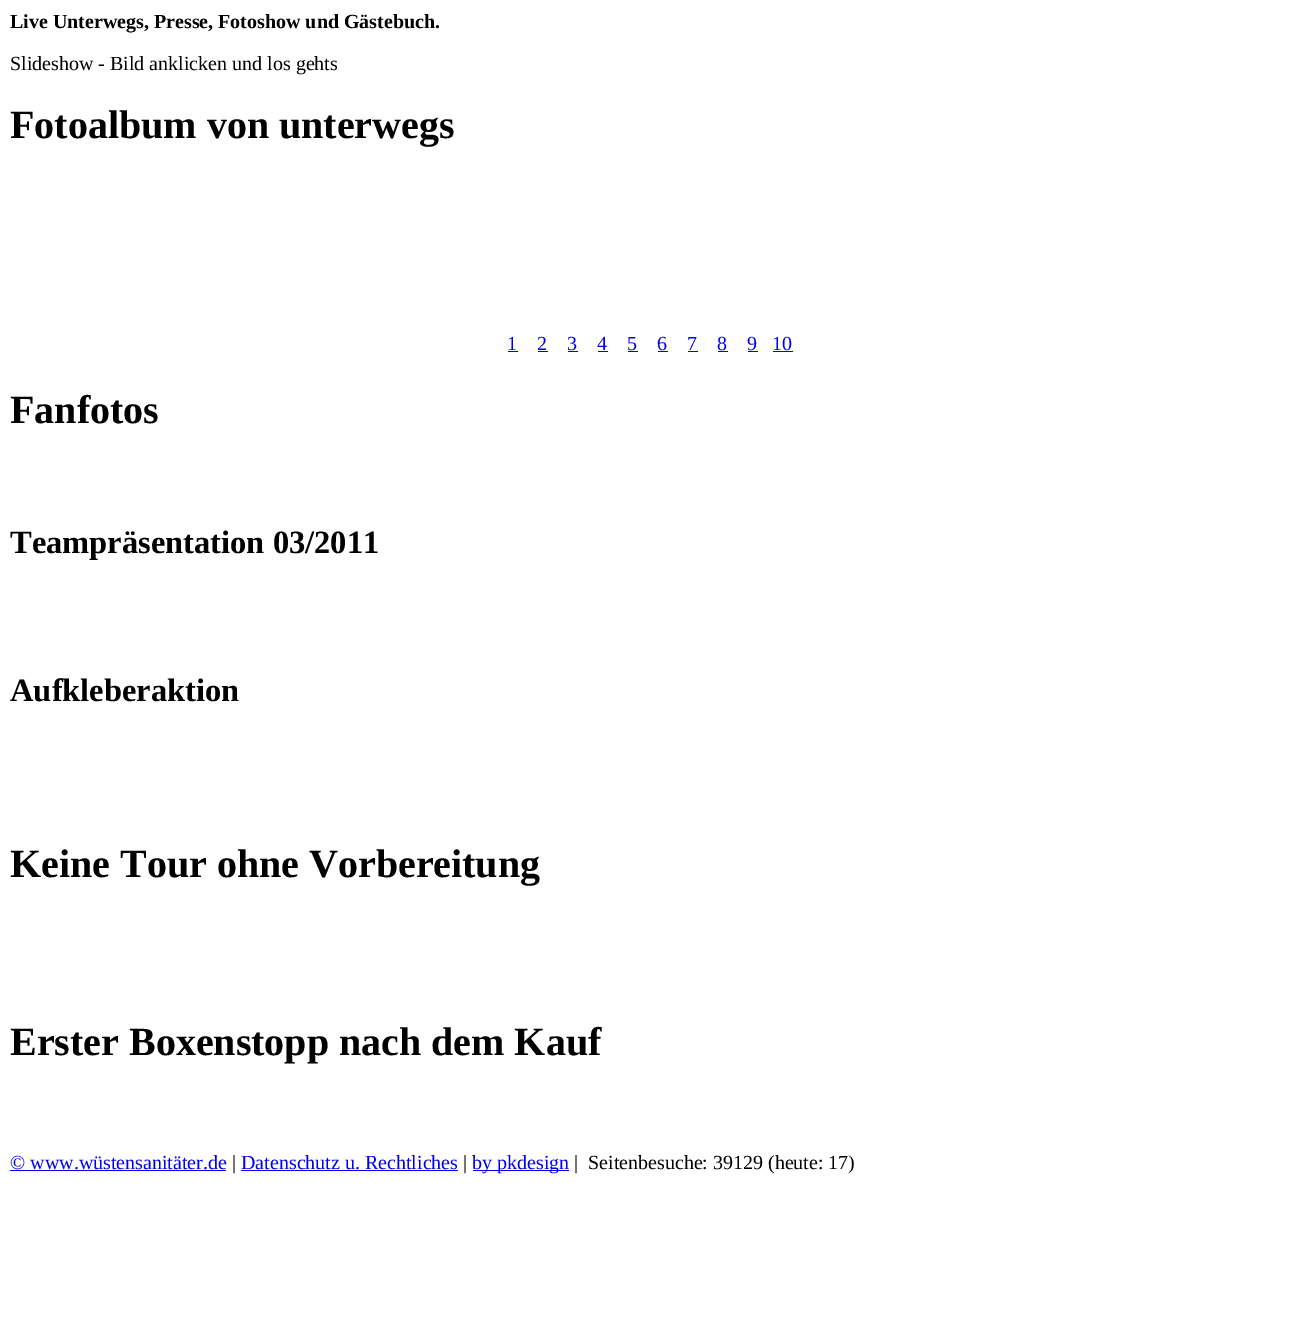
%!PS
<< /PageSize [1293 1328] >> setpagedevice
/rgb { 3 { 255 div 3 1 roll } repeat setrgbcolor } def
/font { [ exch dup neg 0 0 3 -1 roll 0 0 ] selectfont } def
/text { moveto show } def
0 1328 translate 1 -1 scale
4 setmiterlimit
255 255 255 rgb
0 0 1293 1328 rectfill
0 0 238 rgb
508 351 10 1 rectfill
538 351 10 1 rectfill
568 351 10 1 rectfill
598 351 10 1 rectfill
628 351 10 1 rectfill
658 351 10 1 rectfill
688 351 10 1 rectfill
718 351 10 1 rectfill
748 351 10 1 rectfill
773 351 20 1 rectfill
10 1170 216 1 rectfill
241 1170 217 1 rectfill
473 1170 96 1 rectfill
/LiberationSerif-Bold 20 font
0 0 0 rgb
(Live Unterwegs, Presse, Fotoshow und Gästebuch.) 10 28 text
/LiberationSerif-Regular 20 font
(Slideshow - Bild anklicken und los gehts) 10 70 text
/LiberationSerif-Bold 40 font
(Fotoalbum von unterwegs) 10 138 text
/LiberationSerif-Regular 20 font
0 0 238 rgb
(1) 507 350 text
(2) 537 350 text
(3) 567 350 text
(4) 597 350 text
(5) 627 350 text
(6) 657 350 text
(7) 687 350 text
(8) 717 350 text
(9) 747 350 text
(10) 772 350 text
/LiberationSerif-Bold 40 font
0 0 0 rgb
(Fanfotos) 10 423 text
/LiberationSerif-Bold 32.5 font
(Teampräsentation 03/2011) 10 553 text
(Aufkleberaktion) 10 701 text
/LiberationSerif-Bold 40 font
(Keine Tour ohne Vorbereitung) 10 877 text
(Erster Boxenstopp nach dem Kauf) 10 1055 text
/LiberationSerif-Regular 20 font
0 0 238 rgb
(© www.wüstensanitäter.de) 10 1169 text
0 0 0 rgb
(|) 232 1169 text
0 0 238 rgb
(Datenschutz u. Rechtliches) 241 1169 text
0 0 0 rgb
(|) 463 1169 text
0 0 238 rgb
(by pkdesign) 472 1169 text
0 0 0 rgb
(|) 574 1169 text
(Seitenbesuche: 39129 \(heute: 17\)) 588 1169 text
showpage
